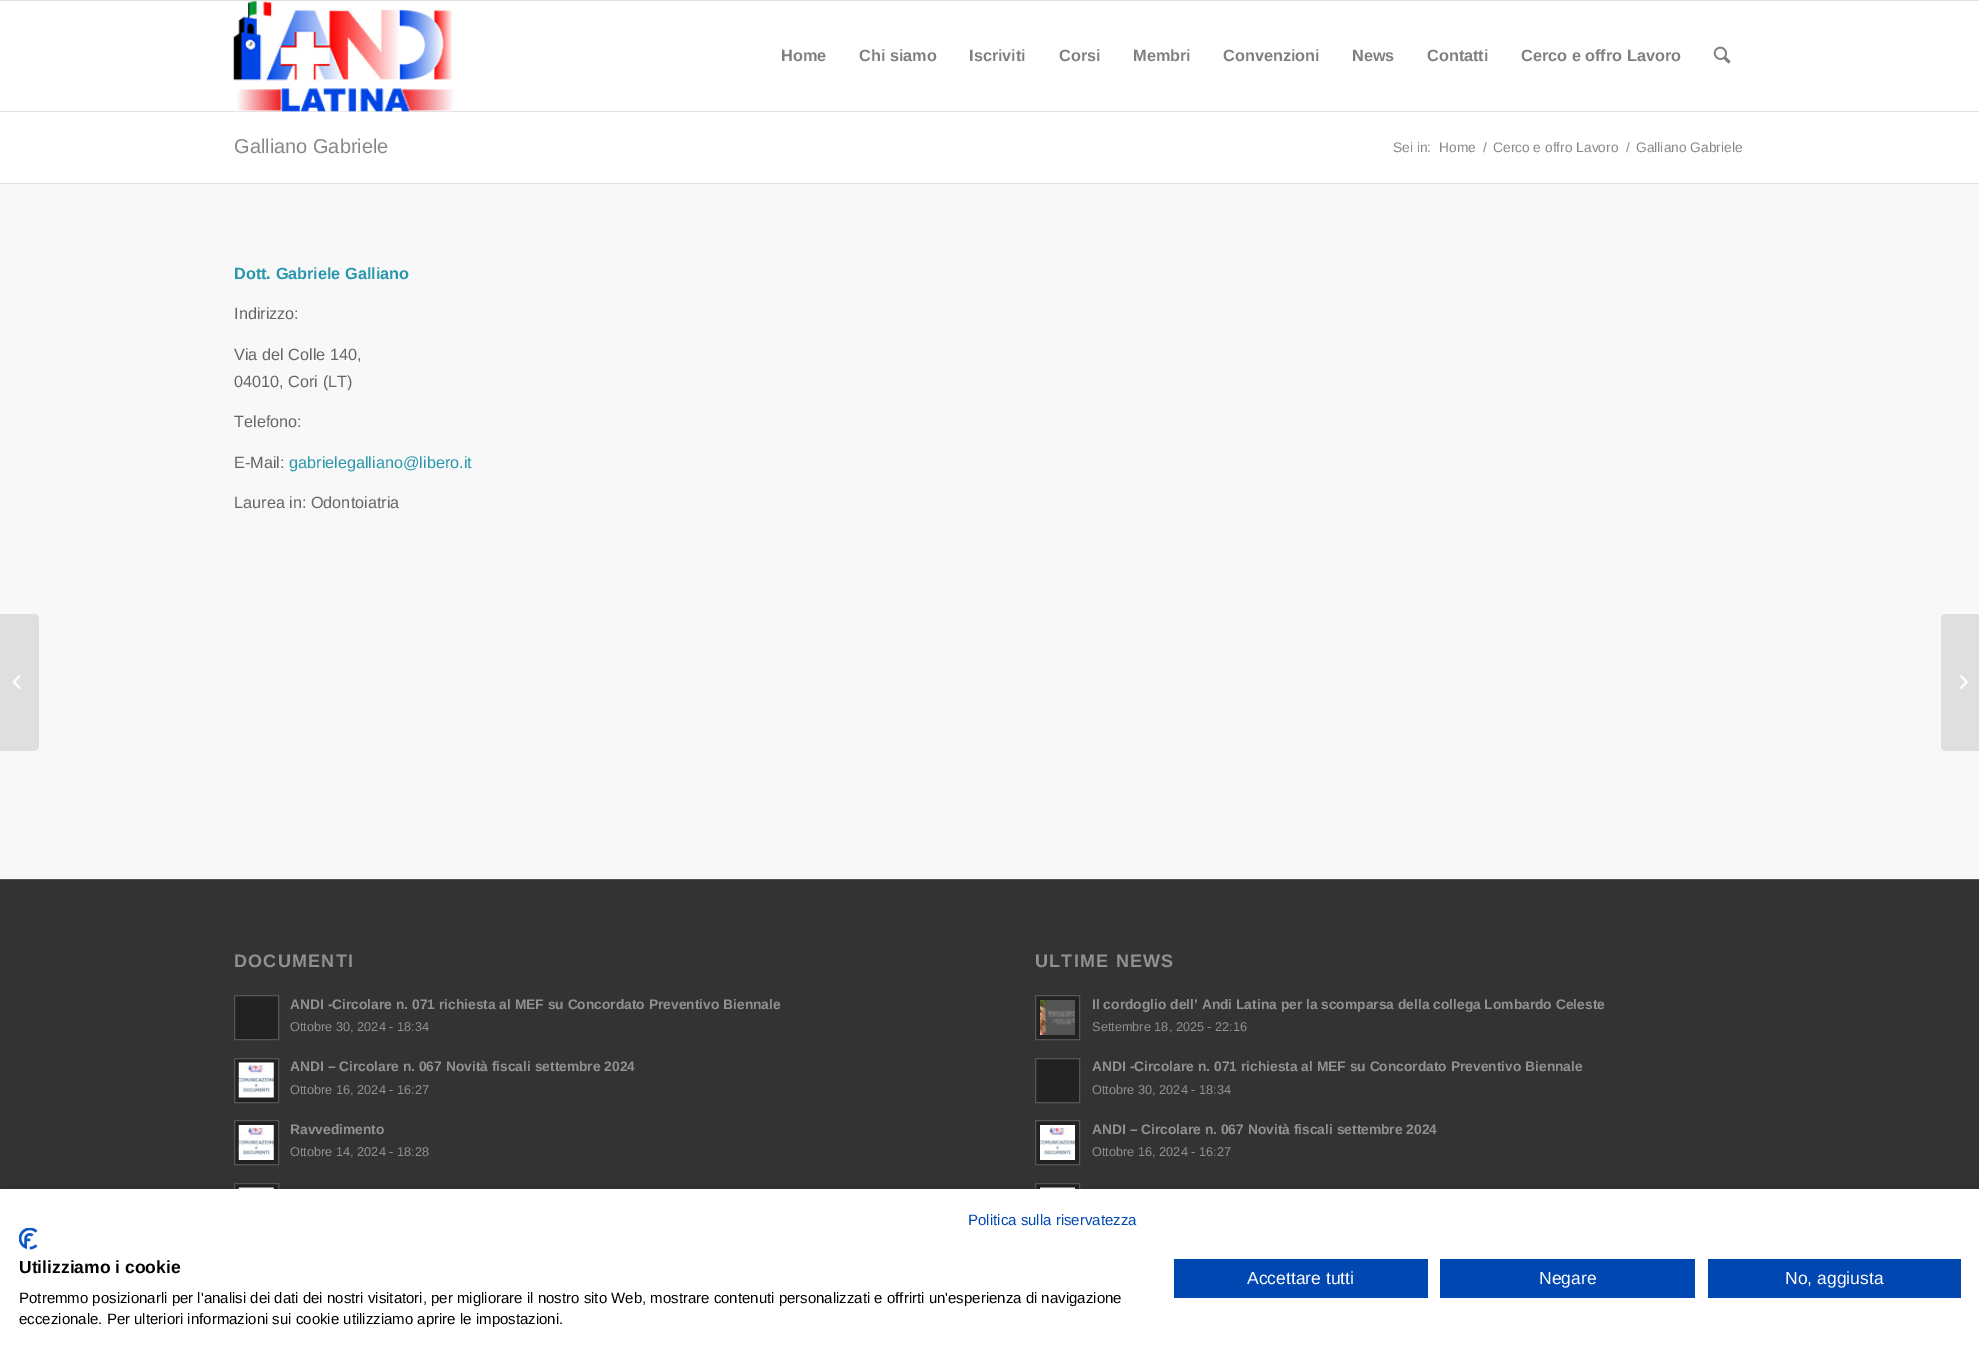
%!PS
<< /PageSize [1979 1363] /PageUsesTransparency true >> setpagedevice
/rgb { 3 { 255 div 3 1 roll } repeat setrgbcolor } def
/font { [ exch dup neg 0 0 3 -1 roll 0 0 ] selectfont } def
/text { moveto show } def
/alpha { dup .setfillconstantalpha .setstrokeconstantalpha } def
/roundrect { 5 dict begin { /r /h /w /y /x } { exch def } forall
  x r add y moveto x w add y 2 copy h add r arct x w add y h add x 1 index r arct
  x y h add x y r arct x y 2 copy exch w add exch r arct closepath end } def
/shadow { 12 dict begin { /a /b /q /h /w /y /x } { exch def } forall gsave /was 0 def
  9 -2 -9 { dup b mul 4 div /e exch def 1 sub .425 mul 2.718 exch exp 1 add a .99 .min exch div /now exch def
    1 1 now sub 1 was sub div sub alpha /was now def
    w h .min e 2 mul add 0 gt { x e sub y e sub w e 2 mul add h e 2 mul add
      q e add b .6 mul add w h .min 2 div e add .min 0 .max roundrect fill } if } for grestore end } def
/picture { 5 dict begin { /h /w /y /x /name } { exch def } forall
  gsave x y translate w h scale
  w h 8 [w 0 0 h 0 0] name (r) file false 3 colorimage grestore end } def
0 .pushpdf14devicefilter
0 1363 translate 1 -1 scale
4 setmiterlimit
255 255 255 rgb
0 0 1979 1363 rectfill
225 225 225 rgb
0 0 1979 1 rectfill
0 111 1979 1 rectfill
(img_01.rgb) 233 1 221 111 picture
(img_02.rgb) 1713 46 18 18 picture
248 248 248 rgb
0 184 1979 695 rectfill
223 223 223 rgb
0 614 moveto 34 0 rlineto 3 0 5 2 5 5 rcurveto 0 127 rlineto 0 3 -2 5 -5 5 rcurveto -34 0 rlineto closepath fill
(img_03.rgb) 12 675 9 14 picture
225 225 225 rgb
0 183 1979 1 rectfill
51 51 51 rgb
0 880 1979 309 rectfill
85 85 85 rgb
0 879 1979 1 rectfill
34 34 34 rgb
234.5 995.5 moveto 44 0 rlineto 0 44 rlineto -44 0 rlineto closepath gsave fill grestore
85 85 85 rgb
stroke
34 34 34 rgb
234.5 1058.5 moveto 44 0 rlineto 0 44 rlineto -44 0 rlineto closepath gsave fill grestore
85 85 85 rgb
stroke
(img_04.rgb) 238 1062 36 36 picture
34 34 34 rgb
234.5 1120.5 moveto 44 0 rlineto 0 44 rlineto -44 0 rlineto closepath gsave fill grestore
85 85 85 rgb
stroke
(img_05.rgb) 238 1125 36 35 picture
34 34 34 rgb
235 1184 43 5 rectfill
85 85 85 rgb
234.5 1183.5 44 44 rectstroke
(img_06.rgb) 238 1187 36 2 picture
34 34 34 rgb
1035.5 995.5 moveto 44 0 rlineto 0 44 rlineto -44 0 rlineto closepath gsave fill grestore
85 85 85 rgb
stroke
(img_07.rgb) 1040 1000 35 35 picture
34 34 34 rgb
1035.5 1058.5 moveto 44 0 rlineto 0 44 rlineto -44 0 rlineto closepath gsave fill grestore
85 85 85 rgb
stroke
34 34 34 rgb
1035.5 1120.5 moveto 44 0 rlineto 0 44 rlineto -44 0 rlineto closepath gsave fill grestore
85 85 85 rgb
stroke
(img_08.rgb) 1040 1125 35 35 picture
34 34 34 rgb
1036 1184 43 5 rectfill
85 85 85 rgb
1035.5 1183.5 44 44 rectstroke
(img_09.rgb) 1040 1187 35 2 picture
223 223 223 rgb
1946 614 moveto 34 0 rlineto 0 137 rlineto -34 0 rlineto -3 0 -5 -2 -5 -5 rcurveto 0 -127 rlineto 0 -3 2 -5 5 -5 rcurveto closepath fill
(img_10.rgb) 1960 675 8 14 picture
0 0 0 rgb
0 1189 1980 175 0 15 0.1 shadow
255 255 255 rgb
0 1189 1979 174 rectfill
(img_11.rgb) 19 1228 19 22 picture
0 71 178 rgb
1174 1259 254 39 rectfill
1440 1259 255 39 rectfill
1708 1259 253 39 rectfill
/LiberationSans-Bold 16.25 font
128 128 128 rgb
(Home) 781 61 text
(Chi siamo) 859 61 text
(Iscriviti) 969 61 text
(Corsi) 1059 61 text
(Membri) 1133 61 text
(Convenzioni) 1223 61 text
(News) 1352 61 text
(Contatti) 1427 61 text
(Cerco e offro Lavoro) 1521 61 text
/LiberationSans-Regular 20 font
136 136 136 rgb
(Galliano Gabriele) 234 153 text
/LiberationSans-Regular 13.75 font
(Sei in:) 1393 152 text
(Home) 1439 152 text
(/) 1483 152 text
(Cerco e offro Lavoro) 1493 152 text
(/) 1626 152 text
(Galliano Gabriele) 1636 152 text
/LiberationSans-Bold 16.25 font
41 151 171 rgb
(Dott. Gabriele Galliano) 234 279 text
/LiberationSans-Regular 16.25 font
102 102 102 rgb
(Indirizzo:) 234 319 text
(Via del Colle 140,) 234 360 text
(04010, Cori \(LT\)) 234 387 text
(Telefono:) 234 427 text
(E-Mail:) 234 468 text
41 151 171 rgb
(gabrielegalliano@libero.it) 289 468 text
102 102 102 rgb
(Laurea in: Odontoiatria) 234 508 text
/LiberationSans-Bold 18 font
145 145 145 rgb
234 967 moveto 1.25 0 (DOCUMENTI) ashow
/LiberationSans-Bold 13.8 font
(ANDI -Circolare n. 071 richiesta al MEF su Concordato Preventivo Biennale) 290 1009 text
/LiberationSans-Regular 12.75 font
(Ottobre 30, 2024 - 18:34) 290 1031 text
/LiberationSans-Bold 13.8 font
(ANDI – Circolare n. 067 Novità fiscali settembre 2024) 290 1071 text
/LiberationSans-Regular 12.75 font
(Ottobre 16, 2024 - 16:27) 290 1094 text
/LiberationSans-Bold 13.8 font
(Ravvedimento) 290 1134 text
/LiberationSans-Regular 12.75 font
(Ottobre 14, 2024 - 18:28) 290 1156 text
/LiberationSans-Bold 18 font
1035 967 moveto 1.25 0 (ULTIME NEWS) ashow
/LiberationSans-Bold 13.8 font
(Il cordoglio dell’ Andi Latina per la scomparsa della collega Lombardo Celeste) 1092 1009 text
/LiberationSans-Regular 12.75 font
(Settembre 18, 2025 - 22:16) 1092 1031 text
/LiberationSans-Bold 13.8 font
(ANDI -Circolare n. 071 richiesta al MEF su Concordato Preventivo Biennale) 1092 1071 text
/LiberationSans-Regular 12.75 font
(Ottobre 30, 2024 - 18:34) 1092 1094 text
/LiberationSans-Bold 13.8 font
(ANDI – Circolare n. 067 Novità fiscali settembre 2024) 1092 1134 text
/LiberationSans-Regular 12.75 font
(Ottobre 16, 2024 - 16:27) 1092 1156 text
/LiberationSans-Regular 15 font
0 71 178 rgb
(Politica sulla riservatezza) 968 1225 text
/LiberationSans-Bold 17.5 font
0 0 0 rgb
(Utilizziamo i cookie) 19 1273 text
/LiberationSans-Regular 15 font
(Potremmo posizionarli per l'analisi dei dati dei nostri visitatori, per migliorare il nostro sito Web, mostrare contenuti personalizzati e offrirti un'esperienza di navigazione) 19 1303 text
(eccezionale. Per ulteriori informazioni sui cookie utilizziamo aprire le impostazioni.) 19 1324 text
/LiberationSans-Regular 17.5 font
255 255 255 rgb
(Accettare tutti) 1247 1284 text
(Negare) 1539 1284 text
(No, aggiusta) 1785 1284 text
.poppdf14devicefilter showpage
